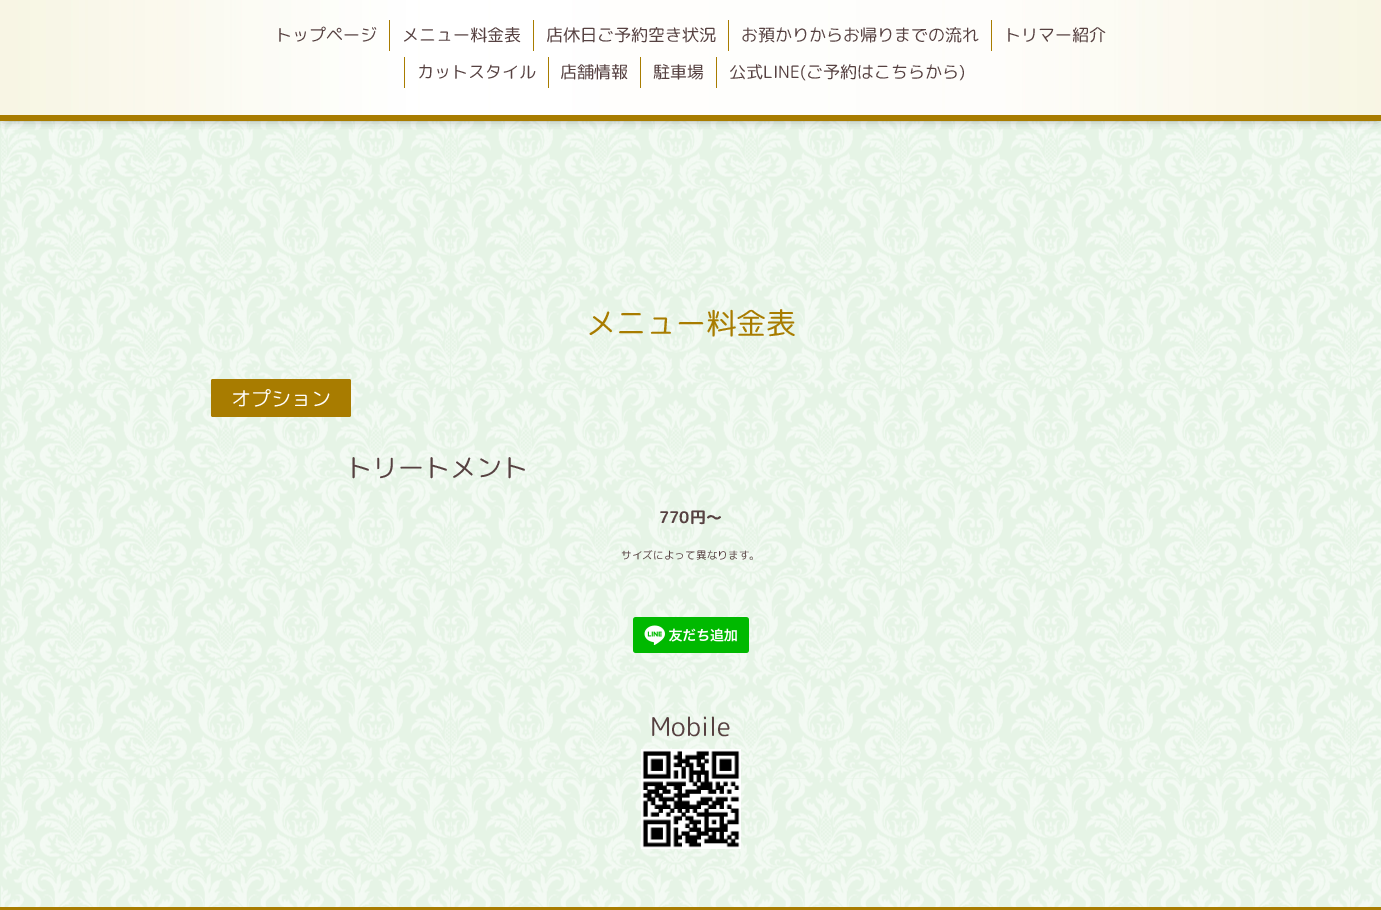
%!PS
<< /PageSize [1381 910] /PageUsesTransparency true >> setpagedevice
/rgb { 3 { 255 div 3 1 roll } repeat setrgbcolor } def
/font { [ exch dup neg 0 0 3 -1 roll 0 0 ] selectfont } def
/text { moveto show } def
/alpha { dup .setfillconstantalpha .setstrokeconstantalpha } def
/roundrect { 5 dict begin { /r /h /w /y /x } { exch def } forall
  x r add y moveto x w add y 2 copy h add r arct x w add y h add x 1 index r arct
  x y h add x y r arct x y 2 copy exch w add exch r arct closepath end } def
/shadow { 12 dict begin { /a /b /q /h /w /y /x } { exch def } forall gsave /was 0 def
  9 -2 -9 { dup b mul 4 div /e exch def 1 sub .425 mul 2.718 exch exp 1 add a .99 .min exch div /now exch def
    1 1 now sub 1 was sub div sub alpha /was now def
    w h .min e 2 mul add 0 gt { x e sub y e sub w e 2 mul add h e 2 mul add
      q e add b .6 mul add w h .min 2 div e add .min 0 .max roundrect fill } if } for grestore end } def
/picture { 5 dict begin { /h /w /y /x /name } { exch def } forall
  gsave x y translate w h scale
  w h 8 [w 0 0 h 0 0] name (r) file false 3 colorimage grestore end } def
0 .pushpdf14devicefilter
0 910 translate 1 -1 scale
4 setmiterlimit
230 244 230 rgb
0 0 1381 910 rectfill
(img_01.rgb) 1 121 1380 786 picture
0 0 0 rgb
4 5 1373 113 0 5 0.6 shadow
(img_02.rgb) 0 0 1381 115 picture
168 124 0 rgb
0 115 1381 6 rectfill
389 20 1 31 rectfill
533 20 1 31 rectfill
728 20 1 31 rectfill
991 20 1 31 rectfill
404 57 1 31 rectfill
548 57 1 31 rectfill
640 57 1 31 rectfill
716 57 1 31 rectfill
211 379 140 38 2 roundrect fill
(img_03.rgb) 633 617 116 36 picture
(img_04.rgb) 641 749 100 100 picture
0 907 1381 3 rectfill
/RoundedMplus1c-Regular 17 font
86 65 65 rgb
(トップページ) 275 41 text
(メニュー料金表) 402 41 text
(店休日ご予約空き状況) 546 41 text
(お預かりからお帰りまでの流れ) 741 41 text
(トリマー紹介) 1004 41 text
(カットスタイル) 417 78 text
(店舗情報) 560 78 text
(駐車場) 653 78 text
(公式LINE\(ご予約はこちらから\)) 729 78 text
/RoundedMplus1c-Regular 30 font
168 124 0 rgb
(メニュー料金表) 586 334 text
/RoundedMplus1c-Regular 20 font
255 255 255 rgb
(オプション) 231 406 text
/RoundedMplus1c-Regular 26 font
86 65 65 rgb
(トリートメント) 346 477 text
/RoundedMplus1cBold-Bold 16 font
(770円〜) 659 523 text
/RoundedMplus1c-Regular 10.7 font
(サイズによって異なります。) 621 559 text
/RoundedMplus1c-Regular 26 font
(Mobile) 650 736 text
.poppdf14devicefilter showpage
